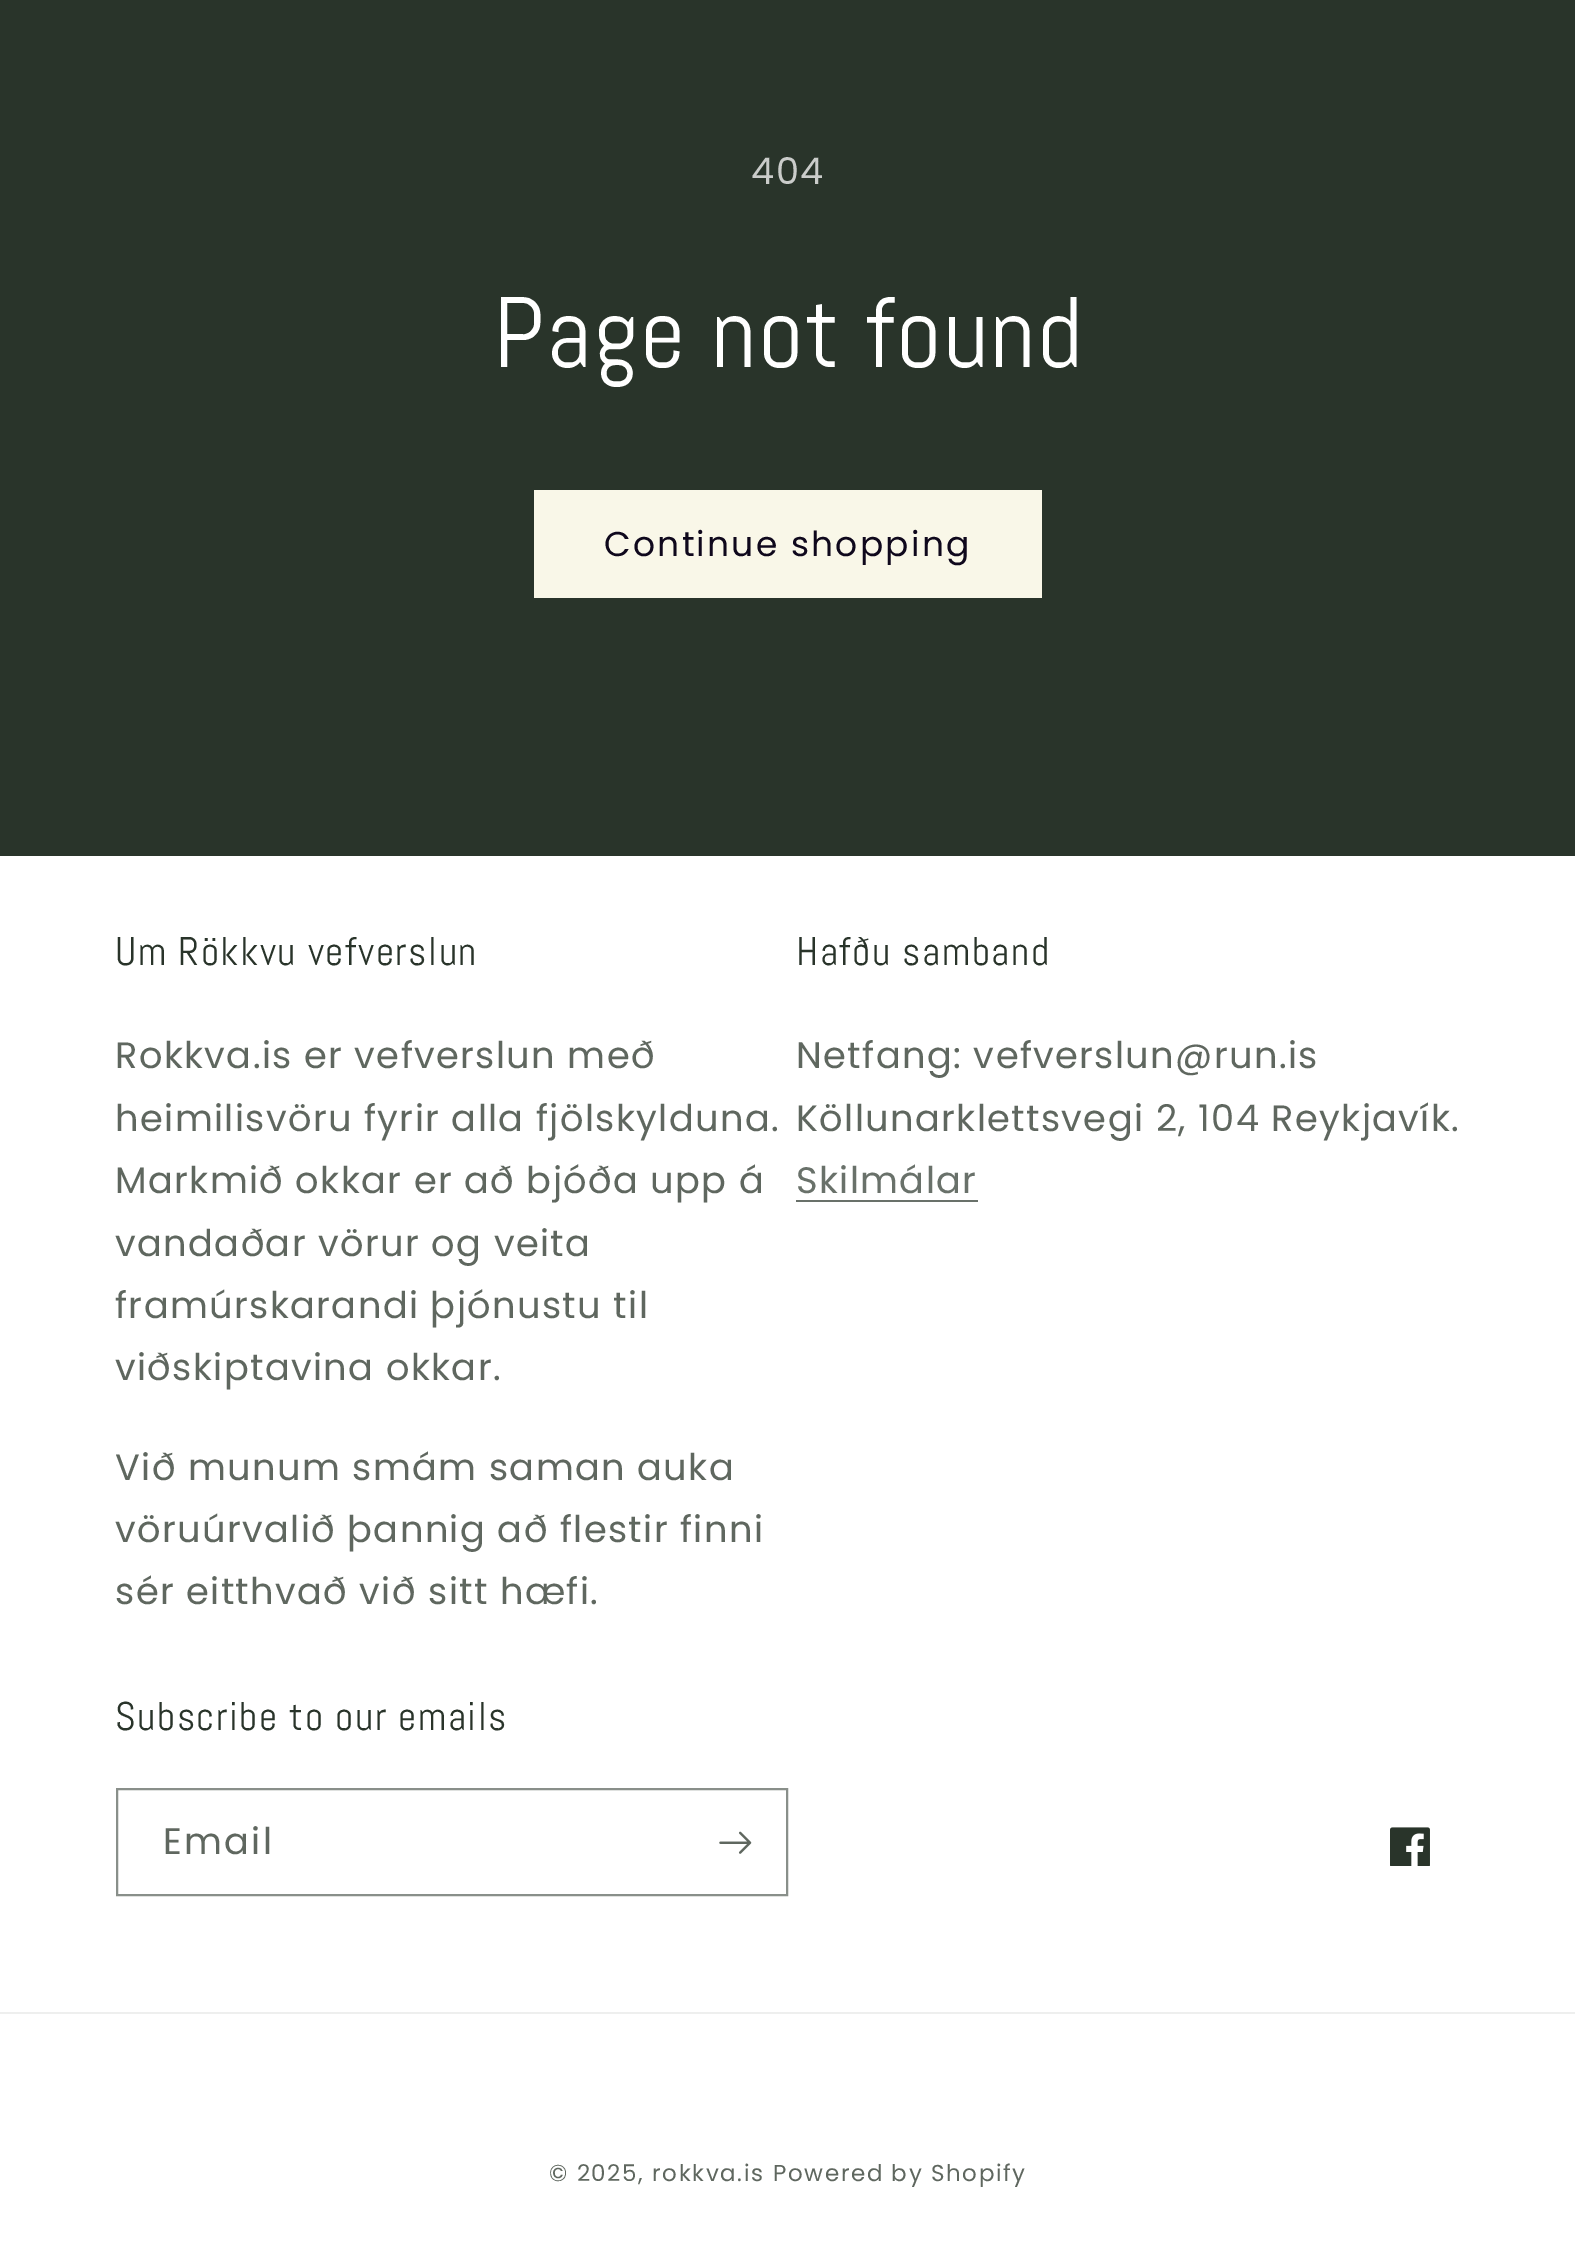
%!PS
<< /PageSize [1575 2267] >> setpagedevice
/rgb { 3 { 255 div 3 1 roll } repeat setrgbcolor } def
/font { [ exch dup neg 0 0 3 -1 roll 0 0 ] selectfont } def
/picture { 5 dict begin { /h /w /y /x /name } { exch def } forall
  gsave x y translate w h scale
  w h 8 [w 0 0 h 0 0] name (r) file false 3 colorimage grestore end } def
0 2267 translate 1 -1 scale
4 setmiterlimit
41 52 42 rgb
0 0 1575 2267 rectfill
249 247 232 rgb
534 490 508 108 rectfill
255 255 255 rgb
0 856 1575 1411 rectfill
105 113 106 rgb
796 1200 182 2 rectfill
137 143 138 rgb
2 setlinewidth
117 1789 670 106 rectstroke
(img_01.rgb) 719 1831 33 23 picture
(img_02.rgb) 1390 1827 40 39 picture
238 239 238 rgb
0 2012 1575 2 rectfill
/Poppins-Regular 36.75 font
202 204 202 rgb
751 184 moveto 1.4 0 (404) ashow
/Abel-Regular 100 font
255 255 255 rgb
493 367 moveto 1.5 0 (Page not found) ashow
/Poppins-Regular 34.5 font
15 8 28 rgb
604 556 moveto 2.25 0 (Continue shopping) ashow
/Abel-Regular 40 font
41 52 42 rgb
115 965 moveto 1.5 0 (Um Rökkvu vefverslun) ashow
/Poppins-Regular 36.75 font
95 103 95 rgb
115 1068 moveto 1.4 0 (Rokkva.is er vefverslun með) ashow
115 1131 moveto 1.4 0 (heimilisvöru fyrir alla fjölskylduna.) ashow
115 1193 moveto 1.4 0 (Markmið okkar er að bjóða upp á) ashow
115 1256 moveto 1.4 0 (vandaðar vörur og veita) ashow
115 1318 moveto 1.4 0 (framúrskarandi þjónustu til) ashow
115 1380 moveto 1.4 0 (viðskiptavina okkar.) ashow
115 1480 moveto 1.4 0 (Við munum smám saman auka) ashow
115 1542 moveto 1.4 0 (vöruúrvalið þannig að flestir finni) ashow
115 1604 moveto 1.4 0 (sér eitthvað við sitt hæfi.) ashow
/Abel-Regular 40 font
41 52 42 rgb
796 965 moveto 1.5 0 (Hafðu samband) ashow
/Poppins-Regular 36.75 font
95 103 95 rgb
796 1068 moveto 1.4 0 (Netfang: vefverslun@run.is) ashow
796 1131 moveto 1.4 0 (Köllunarklettsvegi 2, 104 Reykjavík.) ashow
105 113 106 rgb
796 1193 moveto 1.4 0 (Skilmálar) ashow
/Abel-Regular 40 font
41 52 42 rgb
115 1730 moveto 1.5 0 (Subscribe to our emails) ashow
/Poppins-Regular 36.75 font
95 103 95 rgb
163 1854 moveto 2.25 0 (Email) ashow
/Poppins-Regular 23 font
549 2181 moveto 1.6 0 (© 2025, rokkva.is) ashow
773 2181 moveto 1.6 0 (Powered by Shopify) ashow
showpage
